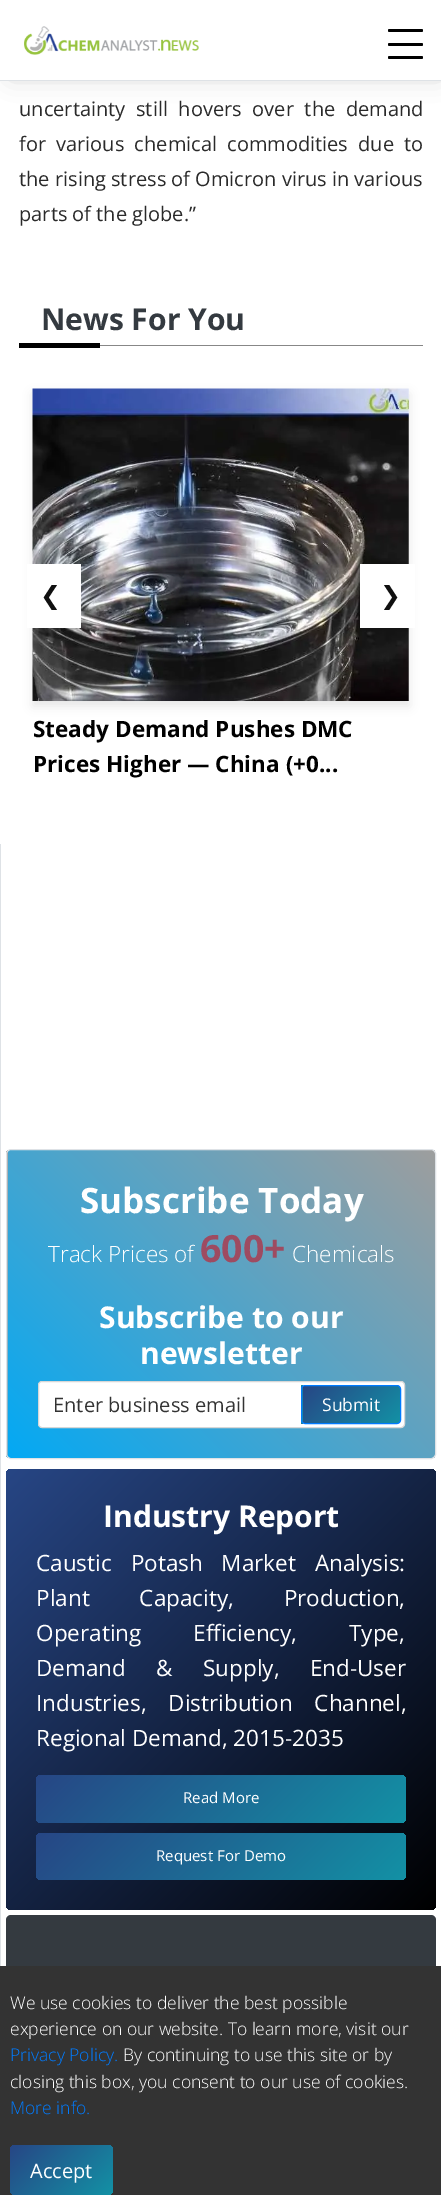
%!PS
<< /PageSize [441 2195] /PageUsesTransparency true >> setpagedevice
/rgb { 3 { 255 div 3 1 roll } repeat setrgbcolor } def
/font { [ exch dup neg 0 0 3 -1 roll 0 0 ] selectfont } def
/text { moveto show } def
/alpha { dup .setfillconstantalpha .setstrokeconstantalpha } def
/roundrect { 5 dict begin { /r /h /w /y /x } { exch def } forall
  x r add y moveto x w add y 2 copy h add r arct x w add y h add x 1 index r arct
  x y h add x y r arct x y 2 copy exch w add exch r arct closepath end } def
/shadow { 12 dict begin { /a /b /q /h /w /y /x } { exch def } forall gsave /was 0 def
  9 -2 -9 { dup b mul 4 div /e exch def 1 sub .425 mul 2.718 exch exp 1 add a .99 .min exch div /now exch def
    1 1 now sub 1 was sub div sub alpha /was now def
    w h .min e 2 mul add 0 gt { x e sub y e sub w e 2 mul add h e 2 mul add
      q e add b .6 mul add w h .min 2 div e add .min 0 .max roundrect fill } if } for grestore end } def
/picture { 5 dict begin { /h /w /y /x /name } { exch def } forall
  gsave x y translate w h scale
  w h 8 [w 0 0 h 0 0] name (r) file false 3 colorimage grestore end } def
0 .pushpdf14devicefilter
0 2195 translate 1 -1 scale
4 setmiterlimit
255 255 255 rgb
0 0 441 2195 rectfill
0 0 0 rgb
11 6 429 69 0 12.5 0.2 shadow
255 255 255 rgb
0 0 441 80 rectfill
222 226 230 rgb
0 80 441 1 rectfill
(img_01.rgb) 24 26 175 29 picture
0 0 0 rgb
388 29 35 3 1.5 roundrect fill
388 43 35 3 1.5 roundrect fill
388 56 35 3 1.5 roundrect fill
135 135 135 rgb
100 345 323 1 rectfill
0 0 0 rgb
19 343 81 5 rectfill
33 394 376 312 0 5 0.1 shadow
(img_02.rgb) 32 388 377 313 picture
255 255 255 rgb
27 564 54 64 rectfill
360 564 55 64 rectfill
222 226 230 rgb
0 844 1 1122 rectfill
gsave
6 1149 430 310 5 roundrect clip newpath
gsave 6 1150 moveto 2 0 rlineto 0 308 rlineto -2 0 rlineto closepath clip newpath
<< /ShadingType 2 /ColorSpace /DeviceRGB /Coords [-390 1488 -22 1120] /Extend [true true] /Function << /FunctionType 2 /Domain [0 1] /C0 [0.012 0.663 0.957] /C1 [0.62 0.62 0.62] /N 1 >> >> shfill grestore
grestore
gsave 8 1150 moveto 427 0 rlineto 0 308 rlineto -427 0 rlineto closepath clip newpath
<< /ShadingType 2 /ColorSpace /DeviceRGB /Coords [38 1488 405 1120] /Extend [true true] /Function << /FunctionType 2 /Domain [0 1] /C0 [0.012 0.663 0.957] /C1 [0.62 0.62 0.62] /N 1 >> >> shfill grestore
6.5 1149.5 429 309 4.5 roundrect stroke
255 255 255 rgb
38.5 1381.5 366 46 3.5 roundrect gsave fill grestore
215 215 215 rgb
stroke
gsave 301 1385 moveto 2 0 rlineto 0 1 rlineto -2 0 rlineto closepath clip newpath
<< /ShadingType 2 /ColorSpace /DeviceRGB /Coords [287 1402 220 1335] /Extend [true true] /Function << /FunctionType 2 /Domain [0 1] /C0 [0.075 0.569 0.647] /C1 [0.153 0.275 0.522] /N 1 >> >> shfill grestore
gsave
301 1385 100 39 4 roundrect clip newpath
gsave 301 1386 moveto 2 0 rlineto 0 37 rlineto -2 0 rlineto closepath clip newpath
<< /ShadingType 2 /ColorSpace /DeviceRGB /Coords [287 1438 220 1371] /Extend [true true] /Function << /FunctionType 2 /Domain [0 1] /C0 [0.075 0.569 0.647] /C1 [0.153 0.275 0.522] /N 1 >> >> shfill grestore
grestore
gsave 303 1386 moveto 97 0 rlineto 0 37 rlineto -97 0 rlineto closepath clip newpath
<< /ShadingType 2 /ColorSpace /DeviceRGB /Coords [385 1438 318 1371] /Extend [true true] /Function << /FunctionType 2 /Domain [0 1] /C0 [0.075 0.569 0.647] /C1 [0.153 0.275 0.522] /N 1 >> >> shfill grestore
gsave 301 1423 moveto 2 0 rlineto 0 1 rlineto -2 0 rlineto closepath clip newpath
<< /ShadingType 2 /ColorSpace /DeviceRGB /Coords [287 1474 220 1407] /Extend [true true] /Function << /FunctionType 2 /Domain [0 1] /C0 [0.075 0.569 0.647] /C1 [0.153 0.275 0.522] /N 1 >> >> shfill grestore
0 123 255 rgb
301.5 1385.5 99 38 3.5 roundrect stroke
gsave 6 1469 430 441 5 roundrect clip newpath
<< /ShadingType 2 /ColorSpace /DeviceRGB /Coords [439 1907 3.4 1472] /Extend [true true] /Function << /FunctionType 2 /Domain [0 1] /C0 [0 0 0] /C1 [0.153 0.275 0.522] /N 1 >> >> shfill grestore
gsave 36 1775 370 48 5 roundrect clip newpath
<< /ShadingType 2 /ColorSpace /DeviceRGB /Coords [326 1903 117 1694] /Extend [true true] /Function << /FunctionType 2 /Domain [0 1] /C0 [0.075 0.569 0.647] /C1 [0.153 0.275 0.522] /N 1 >> >> shfill grestore
gsave 36 1833 370 47 5 roundrect clip newpath
<< /ShadingType 2 /ColorSpace /DeviceRGB /Coords [326 1961 117 1752] /Extend [true true] /Function << /FunctionType 2 /Domain [0 1] /C0 [0.075 0.569 0.647] /C1 [0.153 0.275 0.522] /N 1 >> >> shfill grestore
52 58 64 rgb
6 1915 430 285 5 roundrect fill
51 51 51 rgb
0 1966 441 229 rectfill
gsave 10 2145 103 50 5 roundrect clip newpath
<< /ShadingType 2 /ColorSpace /DeviceRGB /Coords [99 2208 23 2132] /Extend [true true] /Function << /FunctionType 2 /Domain [0 1] /C0 [0.075 0.569 0.647] /C1 [0.153 0.275 0.522] /N 1 >> >> shfill grestore
/OpenSans-Regular 20 font
42 42 42 rgb
19 116 moveto 5.5 0 32 (uncertainty still hovers over the demand) widthshow
19 151 moveto 5 0 32 (for various chemical commodities due to) widthshow
(the rising stress of Omicron virus in various) 19 186 text
(parts of the globe.”) 19 221 text
/OpenSans-Bold 30 font
52 58 64 rgb
(News For You) 41 330 text
/DejaVuSans-Regular 25 font
16 16 16 rgb
(❮) 40 604 text
(❯) 380 604 text
/OpenSans-Bold 22.5 font
0 0 0 rgb
(Steady Demand Pushes DMC) 33 737 text
(Prices Higher — China \(+0...) 33 772 text
/OpenSans-Bold 35 font
255 255 255 rgb
(Subscribe Today) 80 1213 text
/OpenSans-Light 22.5 font
(Track Prices of) 48 1262 text
/OpenSans-Bold 37.5 font
158 75 97 rgb
(600+) 200 1262 text
/OpenSans-Light 22.5 font
255 255 255 rgb
(Chemicals) 292 1262 text
/OpenSans-Bold 30 font
(Subscribe to our) 99 1328 text
(newsletter) 140 1364 text
/OpenSans-Regular 20 font
51 51 51 rgb
(Enter business email) 53 1412 text
/OpenSans-Regular 17.5 font
255 255 255 rgb
(Submit) 322 1411 text
/OpenSans-Bold 30 font
(Industry Report) 103 1527 text
/OpenSans-Regular 22.5 font
36 1571 moveto 13 0 32 (Caustic Potash Market Analysis:) widthshow
36 1606 moveto 44 0 32 (Plant Capacity, Production,) widthshow
36 1641 moveto 46 0 32 (Operating Efficiency, Type,) widthshow
36 1676 moveto 24.5 0 32 (Demand & Supply, End-User) widthshow
36 1711 moveto 16 0 32 (Industries, Distribution Channel,) widthshow
(Regional Demand, 2015-2035) 36 1746 text
/OpenSans-Regular 15 font
(Read More) 183 1803 text
(Request For Demo) 156 1861 text
/OpenSans-Light 17.5 font
(We use cookies to deliver the best possible) 10 2009 text
(experience on our website. To learn more, visit our) 10 2035 text
0 123 255 rgb
(Privacy Policy.) 10 2061 text
255 255 255 rgb
(By continuing to use this site or by) 123 2061 text
(closing this box, you consent to our use of cookies.) 10 2088 text
0 123 255 rgb
(More info.) 10 2114 text
/OpenSans-Regular 20 font
255 255 255 rgb
(Accept) 30 2178 text
.poppdf14devicefilter showpage
